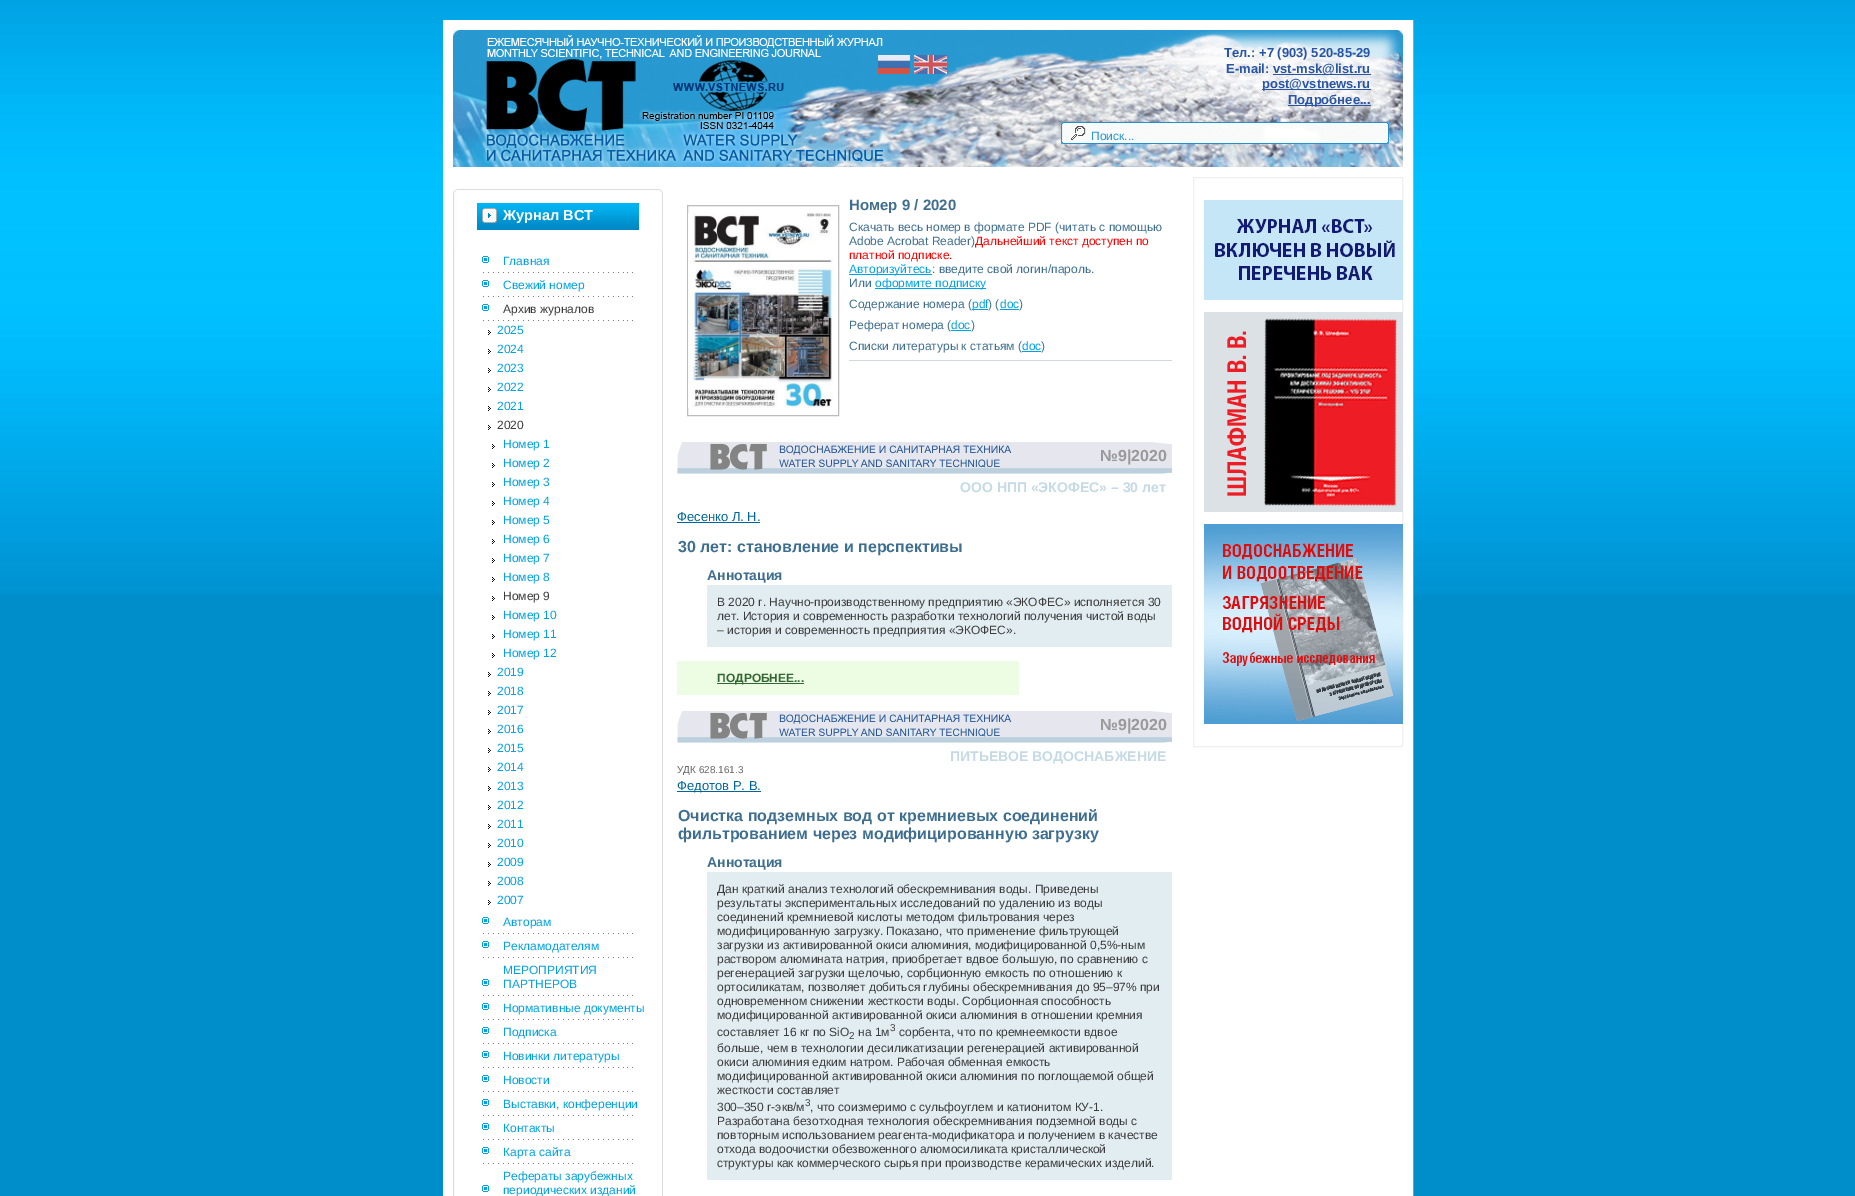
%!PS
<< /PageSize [1855 1196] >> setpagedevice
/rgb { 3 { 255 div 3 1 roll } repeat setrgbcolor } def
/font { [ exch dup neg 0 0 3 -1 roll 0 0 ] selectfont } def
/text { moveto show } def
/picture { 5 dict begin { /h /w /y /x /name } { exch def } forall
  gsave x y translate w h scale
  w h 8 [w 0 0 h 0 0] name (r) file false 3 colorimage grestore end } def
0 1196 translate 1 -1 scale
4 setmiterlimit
0 142 202 rgb
0 0 1855 1196 rectfill
(img_01.rgb) 0 0 1855 595 picture
255 255 255 rgb
10 setlinewidth
448 25 960 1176 rectstroke
(img_02.rgb) 453 30 950 137 picture
(img_03.rgb) 483 35 402 129 picture
(img_04.rgb) 878 55 32 19 picture
(img_05.rgb) 914 55 33 19 picture
0 162 227 rgb
911 75 3 1 rectfill
41 85 165 rgb
1273 74 98 1 rectfill
1262 89 109 1 rectfill
1288 105 83 1 rectfill
(img_06.rgb) 1061 122 328 22 picture
255 255 255 rgb
453 167 950 1029 rectfill
220 220 220 rgb
662 249 1 947 rectfill
(img_07.rgb) 453 249 2 947 picture
(img_08.rgb) 458 189 205 60 picture
(img_09.rgb) 453 189 5 60 picture
(img_10.rgb) 477 203 162 27 picture
(img_11.rgb) 482 256 151 17 picture
(img_11.rgb) 482 280 151 17 picture
(img_11.rgb) 482 304 151 17 picture
(img_12.rgb) 488 330 3 5 picture
(img_12.rgb) 488 349 3 5 picture
(img_12.rgb) 488 368 3 5 picture
(img_12.rgb) 488 387 3 5 picture
(img_12.rgb) 488 406 3 5 picture
(img_12.rgb) 488 425 3 5 picture
(img_12.rgb) 492 444 3 5 picture
(img_12.rgb) 492 463 3 5 picture
(img_12.rgb) 492 482 3 5 picture
(img_12.rgb) 492 501 3 5 picture
(img_12.rgb) 492 520 3 5 picture
(img_12.rgb) 492 539 3 5 picture
(img_12.rgb) 492 558 3 5 picture
(img_12.rgb) 492 577 3 5 picture
(img_12.rgb) 492 596 3 5 picture
(img_12.rgb) 492 615 3 5 picture
(img_12.rgb) 492 634 3 5 picture
(img_12.rgb) 492 653 3 5 picture
(img_12.rgb) 488 672 3 5 picture
(img_12.rgb) 488 691 3 5 picture
(img_12.rgb) 488 710 3 5 picture
(img_12.rgb) 488 729 3 5 picture
(img_12.rgb) 488 748 3 5 picture
(img_12.rgb) 488 767 3 5 picture
(img_12.rgb) 488 786 3 5 picture
(img_12.rgb) 488 805 3 5 picture
(img_12.rgb) 488 824 3 5 picture
(img_12.rgb) 488 843 3 5 picture
(img_12.rgb) 488 862 3 5 picture
(img_12.rgb) 488 881 3 5 picture
(img_12.rgb) 488 900 3 5 picture
(img_11.rgb) 482 917 151 17 picture
(img_11.rgb) 482 941 151 17 picture
(img_11.rgb) 482 979 151 17 picture
(img_11.rgb) 482 1003 151 17 picture
(img_11.rgb) 482 1027 151 17 picture
(img_11.rgb) 482 1051 151 17 picture
(img_11.rgb) 482 1075 151 17 picture
(img_11.rgb) 482 1099 151 17 picture
(img_11.rgb) 482 1123 151 17 picture
(img_11.rgb) 482 1147 151 17 picture
(img_13.rgb) 482 1185 7 7 picture
190 187 187 rgb
1 setlinewidth
687.5 205.5 151 210 rectstroke
(img_14.rgb) 688 213 148 195 picture
0 162 227 rgb
849 274 83 1 rectfill
875 288 111 1 rectfill
972 309 16 1 rectfill
1000 309 19 1 rectfill
1022 351 19 1 rectfill
208 217 223 rgb
849 360 323 1 rectfill
(img_15.rgb) 677 442 495 32 picture
0 102 153 rgb
677 522 83 1 rectfill
226 237 242 rgb
707 585 465 62 rectfill
237 253 227 rgb
677 661 342 34 rectfill
51 102 51 rgb
717 683 87 1 rectfill
(img_15.rgb) 677 711 495 32 picture
0 102 153 rgb
677 791 84 1 rectfill
226 237 242 rgb
707 872 465 308 rectfill
240 239 239 rgb
1193.5 177.5 209 569 rectstroke
(img_16.rgb) 1204 200 199 100 picture
(img_17.rgb) 1204 312 199 200 picture
(img_18.rgb) 1204 524 199 200 picture
/LiberationSans-Bold 13 font
41 85 165 rgb
(Тел.: +7 \(903\) 520-85-29) 1224 57 text
(E-mail:) 1226 73 text
(vst-msk@list.ru) 1273 73 text
(post@vstnews.ru) 1262 88 text
(Подробнее...) 1288 104 text
/LiberationSans-Regular 12 font
39 152 208 rgb
(Поиск...) 1091 140 text
/LiberationSans-Bold 14.5 font
255 255 255 rgb
(Журнал ВСТ) 503 220 text
/LiberationSans-Regular 12 font
0 162 227 rgb
(Главная) 503 265 text
(Свежий номер) 503 289 text
61 60 60 rgb
(Архив журналов) 503 313 text
0 162 227 rgb
(2025) 497 334 text
(2024) 497 353 text
(2023) 497 372 text
(2022) 497 391 text
(2021) 497 410 text
61 60 60 rgb
(2020) 497 429 text
0 162 227 rgb
(Номер 1) 503 448 text
(Номер 2) 503 467 text
(Номер 3) 503 486 text
(Номер 4) 503 505 text
(Номер 5) 503 524 text
(Номер 6) 503 543 text
(Номер 7) 503 562 text
(Номер 8) 503 581 text
61 60 60 rgb
(Номер 9) 503 600 text
0 162 227 rgb
(Номер 10) 503 619 text
(Номер 11) 503 638 text
(Номер 12) 503 657 text
(2019) 497 676 text
(2018) 497 695 text
(2017) 497 714 text
(2016) 497 733 text
(2015) 497 752 text
(2014) 497 771 text
(2013) 497 790 text
(2012) 497 809 text
(2011) 497 828 text
(2010) 497 847 text
(2009) 497 866 text
(2008) 497 885 text
(2007) 497 904 text
(Авторам) 503 926 text
(Рекламодателям) 503 950 text
(МЕРОПРИЯТИЯ) 503 974 text
(ПАРТНЕРОВ) 503 988 text
(Нормативные документы) 503 1012 text
(Подписка) 503 1036 text
(Новинки литературы) 503 1060 text
(Новости) 503 1084 text
(Выставки, конференции) 503 1108 text
(Контакты) 503 1132 text
(Карта сайта) 503 1156 text
(Рефераты зарубежных) 503 1180 text
(периодических изданий) 503 1194 text
/LiberationSans-Bold 15 font
62 111 144 rgb
(Номер 9 / 2020) 849 210 text
/LiberationSans-Regular 12 font
(Скачать весь номер в формате PDF \(читать с помощью) 849 231 text
(Adobe Acrobat Reader\)) 849 245 text
255 0 0 rgb
(Дальнейший текст доступен по) 975 245 text
(платной подписке.) 849 259 text
0 162 227 rgb
(Авторизуйтесь) 849 273 text
62 111 144 rgb
(: введите свой логин/пароль.) 932 273 text
(Или) 849 287 text
0 162 227 rgb
(оформите подписку) 875 287 text
62 111 144 rgb
(Содержание номера \() 849 308 text
0 162 227 rgb
(pdf) 972 308 text
62 111 144 rgb
(\) \() 988 308 text
0 162 227 rgb
(doc) 1000 308 text
62 111 144 rgb
(\)) 1019 308 text
(Реферат номера \() 849 329 text
0 162 227 rgb
(doc) 951 329 text
951 330 20 1 rectfill
62 111 144 rgb
(\)) 971 329 text
(Списки литературы к статьям \() 849 350 text
0 162 227 rgb
(doc) 1022 350 text
62 111 144 rgb
(\)) 1041 350 text
/LiberationSans-Bold 16 font
153 153 153 rgb
(№9|2020) 1100 461 text
/LiberationSans-Bold 14 font
196 218 229 rgb
(ООО НПП «ЭКОФЕС» – 30 лет) 960 492 text
/LiberationSans-Regular 13 font
0 102 153 rgb
(Фесенко Л. Н.) 677 521 text
/LiberationSans-Bold 16 font
62 111 144 rgb
(30 лет: становление и перспективы) 678 552 text
/LiberationSans-Bold 14 font
(Аннотация) 707 580 text
/LiberationSans-Regular 12 font
61 60 60 rgb
(В 2020 г. Научно-производственному предприятию «ЭКОФЕС» исполняется 30) 717 606 text
(лет. История и современность разработки технологий получения чистой воды) 717 620 text
(– история и современность предприятия «ЭКОФЕС».) 717 634 text
/LiberationSans-Bold 12 font
51 102 51 rgb
(ПОДРОБНЕЕ...) 717 682 text
/LiberationSans-Bold 16 font
153 153 153 rgb
(№9|2020) 1100 730 text
/LiberationSans-Bold 14 font
196 218 229 rgb
(ПИТЬЕВОЕ ВОДОСНАБЖЕНИЕ) 950 761 text
/LiberationSans-Regular 10 font
102 102 102 rgb
(УДК 628.161.3) 677 773 text
/LiberationSans-Regular 13 font
0 102 153 rgb
(Федотов Р. В.) 677 790 text
/LiberationSans-Bold 16 font
62 111 144 rgb
(Очистка подземных вод от кремниевых соединений) 678 821 text
(фильтрованием через модифицированную загрузку) 678 839 text
/LiberationSans-Bold 14 font
(Аннотация) 707 867 text
/LiberationSans-Regular 12 font
61 60 60 rgb
(Дан краткий анализ технологий обескремнивания воды. Приведены) 717 893 text
(результаты экспериментальных исследований по удалению из воды) 717 907 text
(соединений кремниевой кислоты методом фильтрования через) 717 921 text
(модифицированную загрузку. Показано, что применение фильтрующей) 717 935 text
(загрузки из активированной окиси алюминия, модифицированной 0,5%-ным) 717 949 text
(раствором алюмината натрия, приобретает вдвое большую, по сравнению с) 717 963 text
(регенерацией загрузки щелочью, сорбционную емкость по отношению к) 717 977 text
(ортосиликатам, позволяет добиться глубины обескремнивания до 95–97% при) 717 991 text
(одновременном снижении жесткости воды. Сорбционная способность) 717 1005 text
(модифицированной активированной окиси алюминия в отношении кремния) 717 1019 text
(составляет 16 кг по SiO) 717 1036 text
/LiberationSans-Regular 10 font
(2) 849 1039 text
/LiberationSans-Regular 12 font
(на 1м) 858 1036 text
/LiberationSans-Regular 10 font
(3) 890 1031 text
/LiberationSans-Regular 12 font
(сорбента, что по кремнеемкости вдвое) 899 1036 text
(больше, чем в технологии десиликатизации регенерацией активированной) 717 1052 text
(окиси алюминия едким натром. Рабочая обменная емкость) 717 1066 text
(модифицированной активированной окиси алюминия по поглощаемой общей) 717 1080 text
(жесткости составляет) 717 1094 text
(300–350 г-экв/м) 717 1111 text
/LiberationSans-Regular 10 font
(3) 805 1106 text
/LiberationSans-Regular 12 font
(, что соизмеримо с сульфоуглем и катионитом КУ-1.) 810 1111 text
(Разработана безотходная технология обескремнивания подземной воды с) 717 1125 text
(повторным использованием реагента-модификатора и получением в качестве) 717 1139 text
(отхода водоочистки обезвоженного алюмосиликата кристаллической) 717 1153 text
(структуры как коммерческого сырья при производстве керамических изделий.) 717 1167 text
showpage
